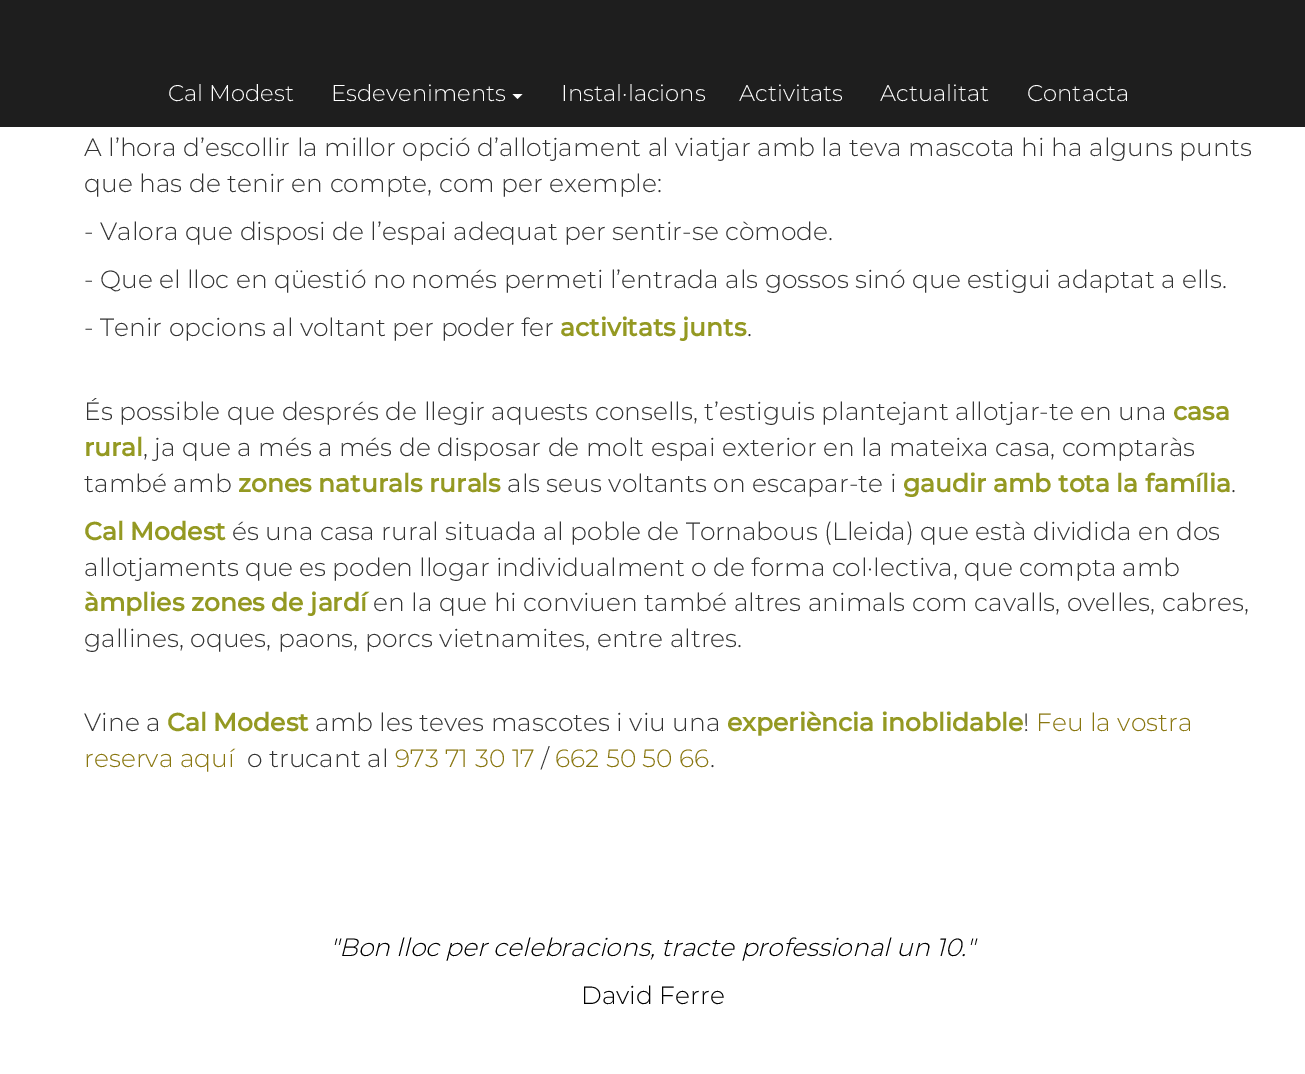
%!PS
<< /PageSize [1305 1074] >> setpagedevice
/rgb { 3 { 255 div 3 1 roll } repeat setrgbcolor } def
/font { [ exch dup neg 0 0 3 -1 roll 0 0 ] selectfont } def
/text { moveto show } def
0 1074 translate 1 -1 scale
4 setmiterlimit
255 255 255 rgb
0 0 1305 1074 rectfill
30 30 30 rgb
0 0 1305 127 rectfill
255 255 255 rgb
512.5 94 moveto 10 0 rlineto -5 5 rlineto closepath fill
/Montserrat-Light 22.75 font
(Cal Modest) 168 101 text
(Esdeveniments) 331 101 text
(Instal·lacions) 561 101 text
(Activitats) 739 101 text
(Actualitat) 880 101 text
(Contacta) 1027 101 text
/Montserrat-Light 25 font
51 51 51 rgb
(A l’hora d’escollir la millor opció d’allotjament al viatjar amb la teva mascota hi ha alguns punts) 84 156 text
(que has de tenir en compte, com per exemple:) 84 192 text
(- Valora que disposi de l’espai adequat per sentir-se còmode.) 84 240 text
(- Que el lloc en qüestió no només permeti l’entrada als gossos sinó que estigui adaptat a ells.) 84 288 text
(- Tenir opcions al voltant per poder fer) 84 336 text
/Montserrat-Bold 25 font
148 153 34 rgb
(activitats junts) 560 336 text
/Montserrat-Light 25 font
51 51 51 rgb
(.) 747 336 text
(És possible que després de llegir aquests consells, t’estiguis plantejant allotjar-te en una) 84 420 text
/Montserrat-Bold 25 font
148 153 34 rgb
(casa) 1173 420 text
(rural) 84 456 text
/Montserrat-Light 25 font
51 51 51 rgb
(, ja que a més a més de disposar de molt espai exterior en la mateixa casa, comptaràs) 143 456 text
(també amb) 84 492 text
/Montserrat-Bold 25 font
148 153 34 rgb
(zones naturals rurals) 238 492 text
/Montserrat-Light 25 font
51 51 51 rgb
(als seus voltants on escapar-te i) 507 492 text
/Montserrat-Bold 25 font
148 153 34 rgb
(gaudir amb tota la família) 903 492 text
/Montserrat-Light 25 font
51 51 51 rgb
(.) 1231 492 text
/Montserrat-Bold 25 font
148 153 34 rgb
(Cal Modest) 84 540 text
/Montserrat-Light 25 font
51 51 51 rgb
(és una casa rural situada al poble de Tornabous \(Lleida\) que està dividida en dos) 232 540 text
84 576 moveto -0.3 0 32 (allotjaments que es poden llogar individualment o de forma col·lectiva, que compta amb) widthshow
/Montserrat-Bold 25 font
148 153 34 rgb
(àmplies zones de jardí) 84 611 text
/Montserrat-Light 25 font
51 51 51 rgb
(en la que hi conviuen també altres animals com cavalls, ovelles, cabres,) 373 611 text
(gallines, oques, paons, porcs vietnamites, entre altres.) 84 647 text
(Vine a) 84 731 text
/Montserrat-Bold 25 font
148 153 34 rgb
(Cal Modest) 167 731 text
/Montserrat-Light 25 font
51 51 51 rgb
(amb les teves mascotes i viu una) 315 731 text
/Montserrat-Bold 25 font
148 153 34 rgb
(experiència inoblidable) 727 731 text
/Montserrat-Light 25 font
51 51 51 rgb
(!) 1023 731 text
137 118 15 rgb
(Feu la vostra) 1036 731 text
(reserva aquí) 84 767 text
51 51 51 rgb
(o trucant al) 247 767 text
137 118 15 rgb
(973 71 30 17) 395 767 text
51 51 51 rgb
(/) 541 767 text
137 118 15 rgb
(662 50 50 66) 555 767 text
51 51 51 rgb
(.) 710 767 text
/Montserrat-LightItalic 25 font
0 0 0 rgb
("Bon lloc per celebracions, tracte professional un 10.") 330 956 text
/Montserrat-Light 25 font
(David Ferre) 581 1004 text
showpage
